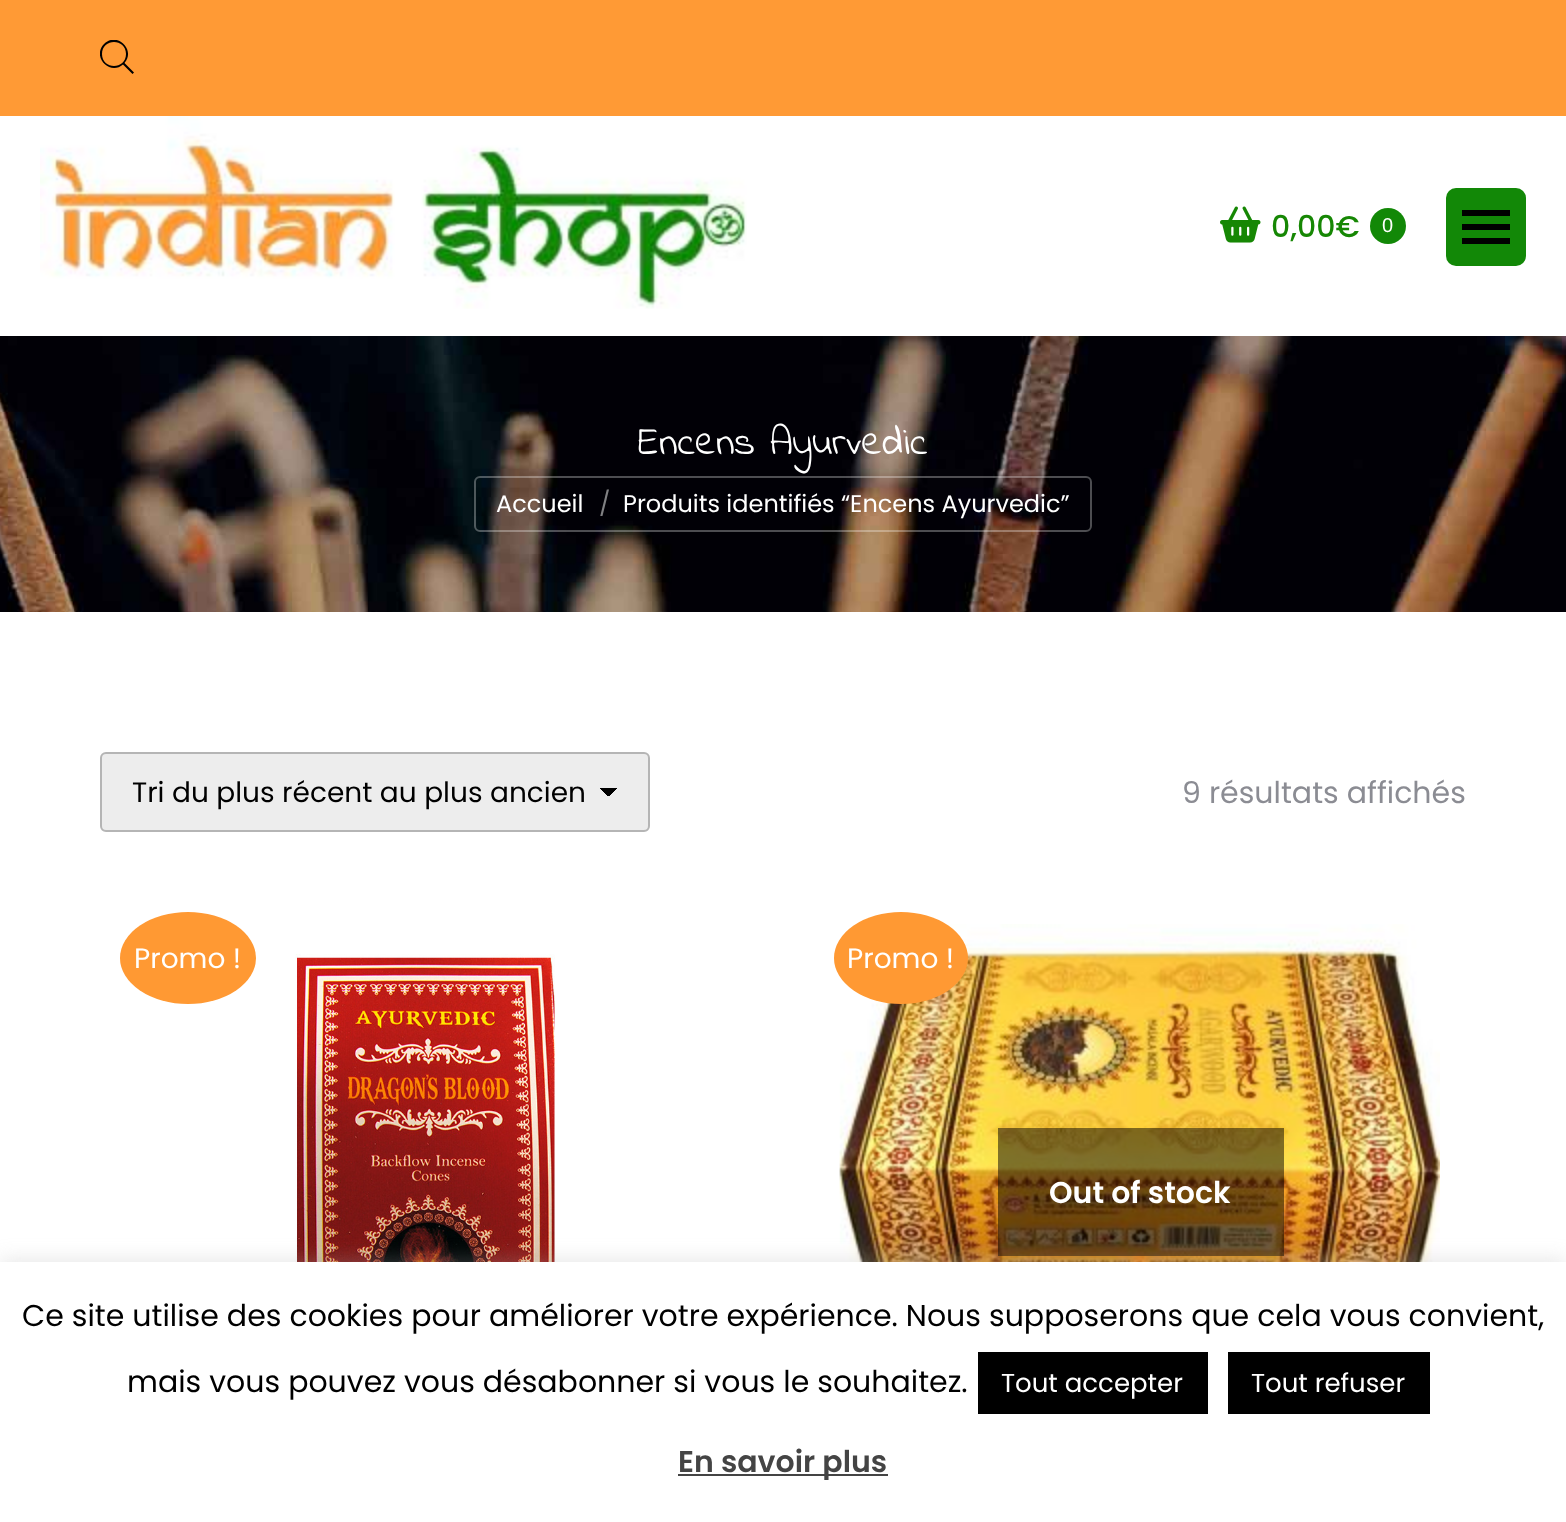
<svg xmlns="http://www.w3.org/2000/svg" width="1566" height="1522">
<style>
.a{font:500 30px Poppins;fill:#168704}
.b{font:20px Liberation Sans;fill:#fff}
.c{font:40px Indie Flower;fill:#fff}
.d{font:24px Poppins;fill:#fff}
.e{font:24px Poppins;fill:#808083}
.f{font:28px Poppins;fill:#000}
.g{font:30px Poppins;fill:#8b8c93}
.h{font:28px Poppins;fill:#fff}
.i{font:600 30px Poppins;fill:#fff}
.j{font:30px Poppins;fill:#000}
.k{font:26px Poppins;fill:#fff}
.l{font:600 30px Poppins;fill:#444}
</style>
<defs>
<clipPath id="clip1"><path d="M100 40h34v34H100z"/></clipPath>
<linearGradient id="g1" gradientUnits="userSpaceOnUse" x1="608" y1="787" x2="618" y2="797"><stop offset="0.5" stop-color="#000"/><stop offset="0.5" stop-color="#ededed"/></linearGradient>
<linearGradient id="g2" gradientUnits="userSpaceOnUse" x1="598" y1="797" x2="608" y2="787"><stop offset="0.5" stop-color="#ededed"/><stop offset="0.5" stop-color="#000"/></linearGradient>
</defs>
<rect width="100%" height="100%" fill="#fff"/>
<path fill="#ff9a35" d="M0 0h1566v116H0z"/>
<g clip-path="url(#clip1)">
<path fill="#000" d="M134 72.5l-9.5-9.5c11.5-13-7.5-32-20.5-19c-12.5 13 6 32 19 20.5l9.5 9.5zm-32-18.5c0-16 24-16 24 0c0 16-24 16-24 0z"/>
</g>
<image href="1.png" x="40" y="116" width="707" height="193"/>
<image href="2.png" x="1220" y="206" width="41" height="37"/>
<circle fill="#128807" cx="1388" cy="226" r="18"/>
<rect fill="#128807" x="1446" y="188" width="80" height="78" rx="10"/>
<path fill="#000" d="M1462 210h48v6H1462z"/>
<path fill="#000" d="M1462 224h48v6H1462z"/>
<path fill="#000" d="M1462 238h48v6H1462z"/>
<image href="3.png" x="0" y="336" width="1566" height="276"/>
<rect fill="none" stroke="#ffffff4d" stroke-width="2" x="475" y="477" width="616" height="54" rx="5"/>
<rect fill="#ededed" x="100" y="752" width="550" height="80" rx="6"/>
<path fill="url(#g1)" d="M608 788h9v8H608z"/>
<path fill="url(#g2)" d="M600 788h8v8H600z"/>
<rect fill="none" stroke="#11111140" stroke-width="2" x="101" y="753" width="548" height="78" rx="5"/>
<ellipse fill="#f93" cx="188" cy="958" rx="68" ry="46"/>
<image href="4.png" x="295" y="954" width="260" height="308"/>
<image href="5.png" x="839" y="924" width="601" height="338"/>
<ellipse fill="#f93" cx="901" cy="958" rx="67" ry="46"/>
<path fill="#00000080" d="M998 1128h286v128H998z"/>
<path fill="#acabab4d" filter="blur(10px)" d="M0 1260h1566v260H0z"/>
<path fill="#fff" d="M0 1262h1566v260H0z"/>
<path fill="#000" d="M978 1352h230v62H978z"/>
<path fill="#000" d="M1228 1352h202v62H1228z"/>
<path fill="#444" d="M678 1474h210v2H678z"/>
<text class="a" x="1271" y="237">0,00€</text>
<text class="b" x="1382" y="232">0</text>
<text class="c" x="638" y="454">Encens Ayurvedic</text>
<text class="d" x="496" y="512">Accueil</text>
<text class="e" x="599" y="512">/</text>
<text class="d" x="623" y="512">Produits identifiés “Encens Ayurvedic”</text>
<text class="f" x="132" y="802">Tri du plus récent au plus ancien</text>
<text class="g" x="1182" y="803">9 résultats affichés</text>
<text class="h" x="134" y="968">Promo !</text>
<text class="h" x="847" y="968">Promo !</text>
<text class="i" x="1049" y="1203">Out of stock</text>
<text class="j" x="22" y="1326">Ce site utilise des cookies pour améliorer votre expérience. Nous supposerons que cela vous convient,</text>
<text class="j" x="127" y="1392">mais vous pouvez vous désabonner si vous le souhaitez.</text>
<text class="k" x="1001" y="1392">Tout accepter</text>
<text class="k" x="1251" y="1392">Tout refuser</text>
<text class="l" x="678" y="1472">En savoir plus</text>
</svg>
